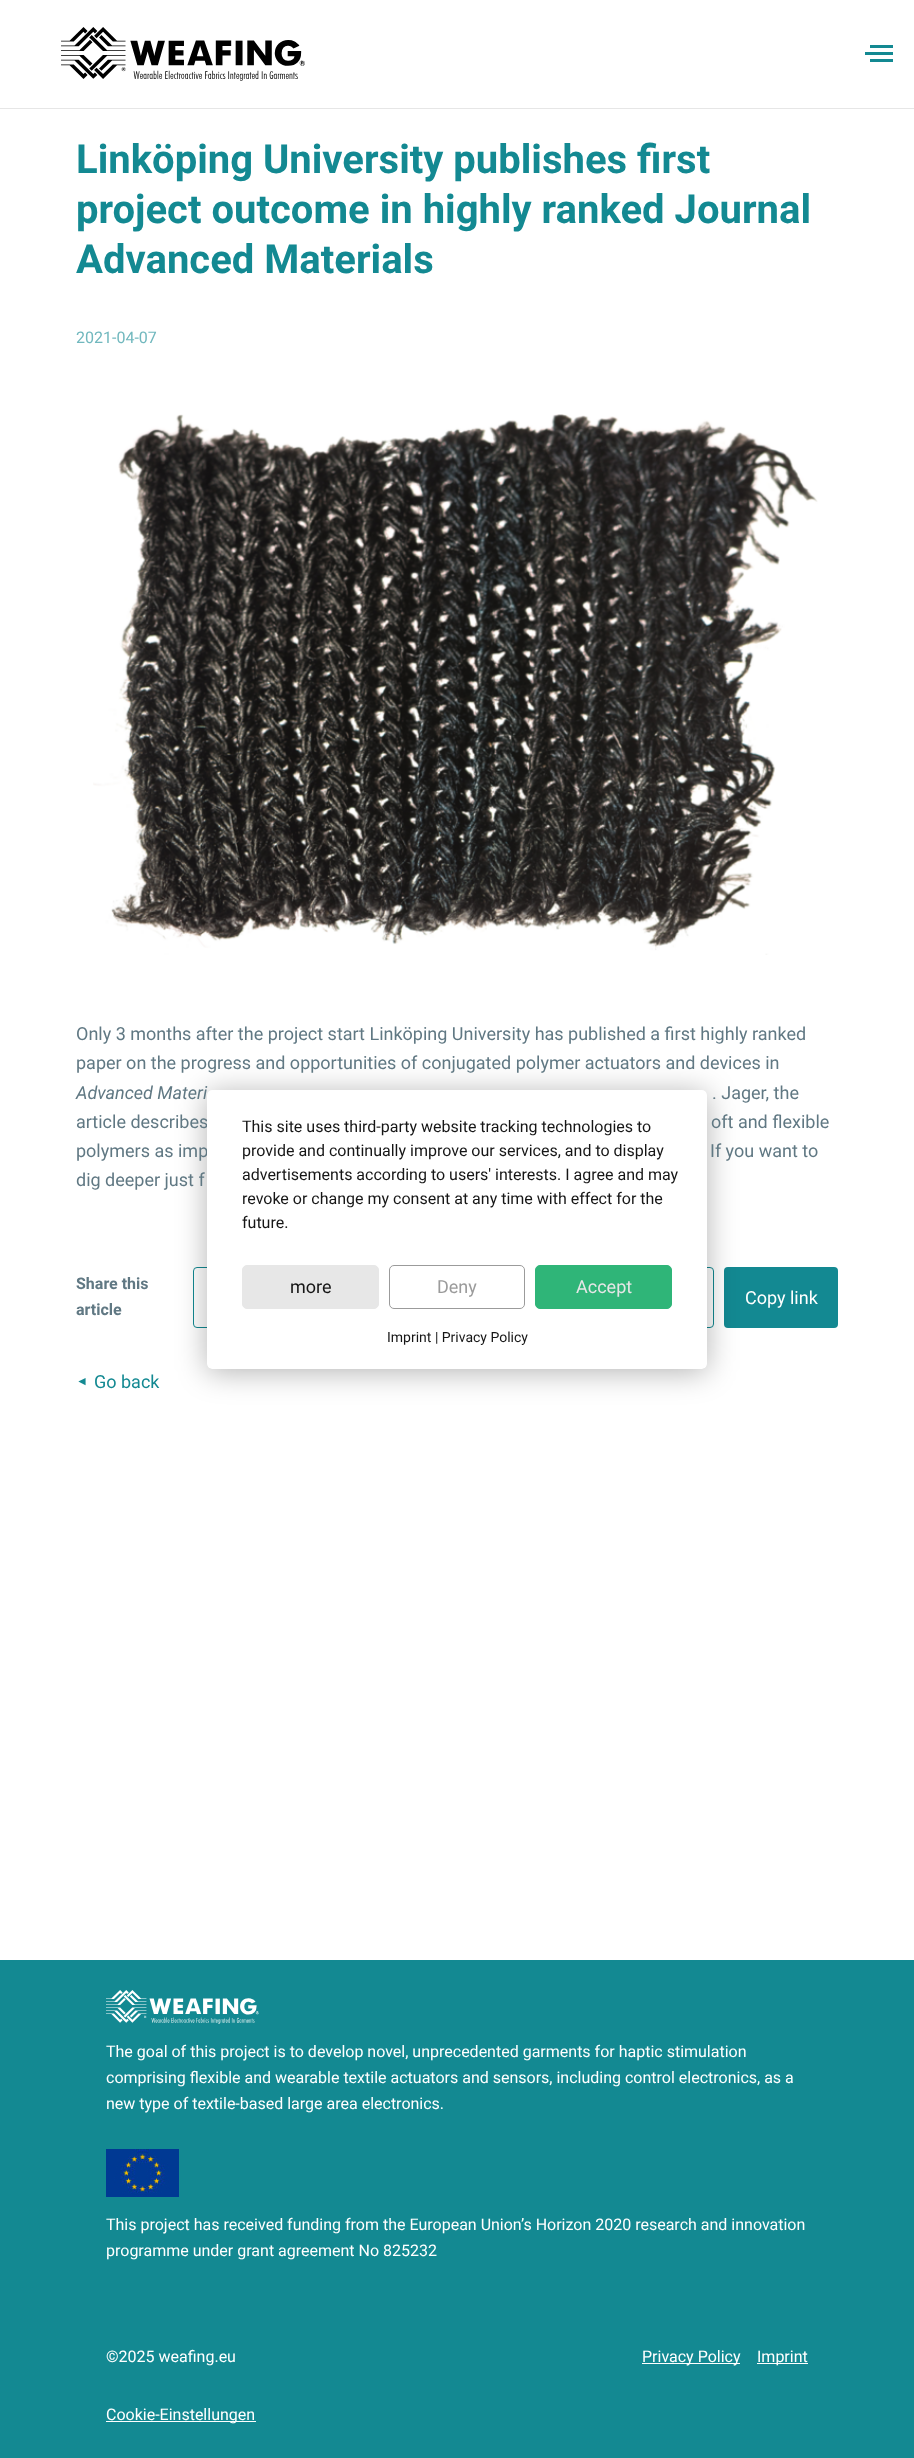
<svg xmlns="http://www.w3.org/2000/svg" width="914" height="2458">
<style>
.a{font:bold 40px Roboto;fill:#138992}
.b{font:16px Roboto;fill:#71b8be}
.c{font:18px Roboto;fill:#607883}
.d{font:italic 18px Roboto;fill:#607883}
.e{font:bold 16px Roboto;fill:#607883}
.f{font:18px Roboto;fill:#fff}
.g{font:12px Liberation Serif;fill:#138992}
.h{font:18px Roboto;fill:#138992}
.i{font:16px Roboto;fill:#fff}
.j{font:16px Roboto;fill:#161616}
.k{font:18px Roboto;fill:#161616}
.l{font:18px Roboto;fill:#9b9b9b}
.m{font:18px Roboto;fill:#e6e6e6}
.n{font:14px Roboto;fill:#161616}
</style>
<defs>
<clipPath id="clip1"><rect x="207" y="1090" width="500" height="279" rx="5"/></clipPath>
</defs>
<rect width="100%" height="100%" fill="#fff"/>
<path fill="#e6e6e6" d="M0 108h914v1H0z"/>
<image href="1.png" x="61" y="27" width="244" height="54"/>
<path fill="#138992" d="M865 52h28v3H865z"/>
<path fill="#138992" d="M870 45h23v3H870z"/>
<path fill="#138992" d="M870 59h23v3H870z"/>
<image href="2.png" x="93" y="414" width="725" height="541"/>
<rect fill="none" stroke="#138992" x="193.5" y="1267.5" width="520" height="60" rx="3.5"/>
<rect fill="#138992" x="724" y="1267" width="114" height="61" rx="4"/>
<path fill="#138992" d="M0 1960h914v498H0z"/>
<image href="3.png" x="106" y="1990" width="153" height="34"/>
<image href="4.png" x="106" y="2149" width="73" height="48"/>
<path fill="#fff" d="M642 2363h98v1H642z"/>
<path fill="#fff" d="M757 2363h51v1H757z"/>
<path fill="#fff" d="M106 2421h150v1H106z"/>
<rect fill="#0000004d" filter="blur(15px)" x="207" y="1093" width="500" height="279" rx="5"/>
<g clip-path="url(#clip1)">
<path fill="#0000004d" filter="blur(18px)" d="M207 1096h500v279H207z"/>
</g>
<text class="a" x="76" y="173">Linköping University publishes first</text>
<text class="a" x="76" y="223">project outcome in highly ranked Journal</text>
<text class="a" x="76" y="273">Advanced Materials</text>
<text class="b" x="76" y="343">2021-04-07</text>
<text class="c" x="76" y="1040">Only 3 months after the project start Linköping University has published a first highly ranked</text>
<text class="c" x="76" y="1069">paper on the progress and opportunities of conjugated polymer actuators and devices in</text>
<text class="d" x="76" y="1099">Advanced Materi</text>
<text class="c" x="712" y="1099">. Jager, the</text>
<text class="c" x="76" y="1128">article describes</text>
<text class="c" x="711" y="1128">oft and flexible</text>
<text class="c" x="76" y="1157">polymers as imp</text>
<text class="c" x="710" y="1157">If you want to</text>
<text class="c" x="76" y="1186">dig deeper just f</text>
<text class="e" x="76" y="1289">Share this</text>
<text class="e" x="76" y="1315">article</text>
<text class="f" x="745" y="1304">Copy link</text>
<text class="g" x="76" y="1385">◄</text>
<text class="h" x="94" y="1388">Go back</text>
<text class="i" x="106" y="2057">The goal of this project is to develop novel, unprecedented garments for haptic stimulation</text>
<text class="i" x="106" y="2083">comprising flexible and wearable textile actuators and sensors, including control electronics, as a</text>
<text class="i" x="106" y="2109">new type of textile-based large area electronics.</text>
<text class="i" x="106" y="2230">This project has received funding from the European Union’s Horizon 2020 research and innovation</text>
<text class="i" x="106" y="2256">programme under grant agreement No 825232</text>
<text class="i" x="106" y="2362">©2025 weafing.eu</text>
<text class="i" x="642" y="2362">Privacy Policy</text>
<text class="i" x="757" y="2362">Imprint</text>
<text class="i" x="106" y="2420">Cookie-Einstellungen</text>
<rect fill="#fff" x="207" y="1090" width="500" height="279" rx="5"/>
<text class="j" x="242" y="1132">This site uses third-party website tracking technologies to</text>
<text class="j" x="242" y="1156">provide and continually improve our services, and to display</text>
<text class="j" x="242" y="1180">advertisements according to users' interests. I agree and may</text>
<text class="j" x="242" y="1204">revoke or change my consent at any time with effect for the</text>
<text class="j" x="242" y="1228">future.</text>
<rect fill="#e7e7e7" stroke="#e7e7e7" x="242.5" y="1265.5" width="136" height="43" rx="4.5"/>
<text class="k" x="290" y="1293">more</text>
<rect fill="none" stroke="#9b9b9b" x="389.5" y="1265.5" width="135" height="43" rx="4.5"/>
<text class="l" x="437" y="1293">Deny</text>
<rect fill="#2fb578" stroke="#2fb578" x="535.5" y="1265.5" width="136" height="43" rx="4.5"/>
<text class="m" x="576" y="1293">Accept</text>
<text class="n" x="387" y="1342">Imprint | Privacy Policy</text>
</svg>
